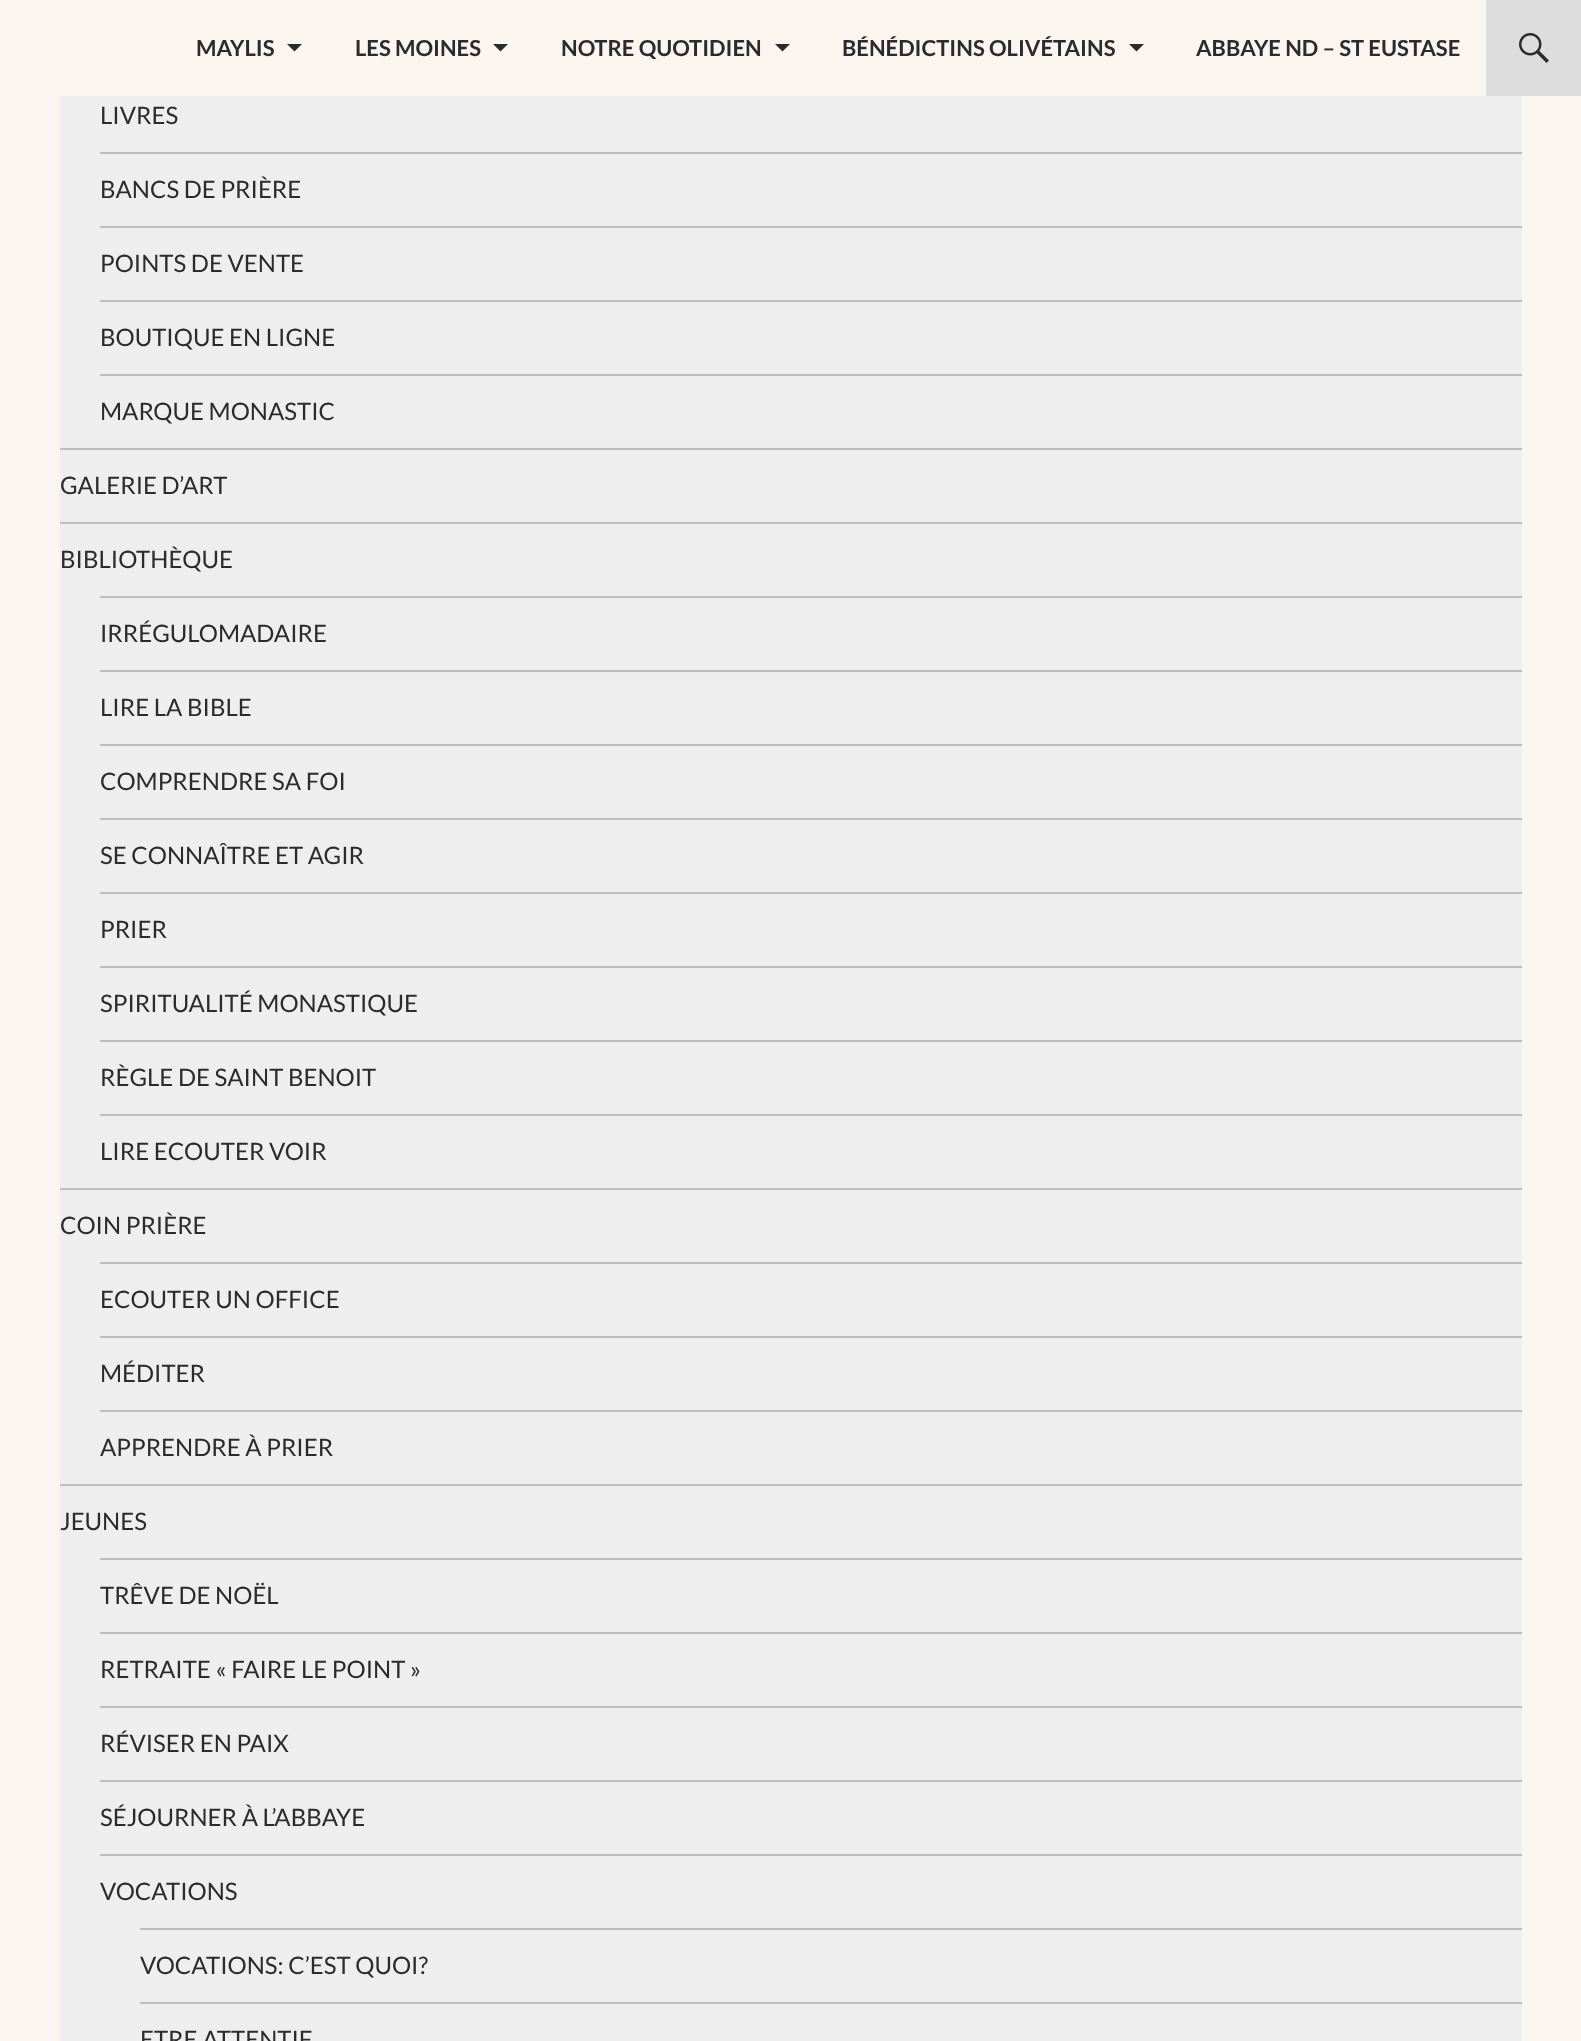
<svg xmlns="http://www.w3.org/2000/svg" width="1581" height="2041">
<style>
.a{font:bold 22px Lato;fill:#2b2b2b}
.b{font:24px Lato;fill:#2b2b2b}
</style>
<rect width="100%" height="100%" fill="#fbf5ef"/>
<path fill="#2b2b2b" d="M287 44l7.5 7.5l7.5-7.5z"/>
<path fill="#2b2b2b" d="M493 44l7.5 7.5l7.5-7.5z"/>
<path fill="#2b2b2b" d="M775 44l7.5 7.5l7.5-7.5z"/>
<path fill="#2b2b2b" d="M1129 44l7.5 7.5l7.5-7.5z"/>
<path fill="#ddd" d="M1486 0h95v96H1486z"/>
<image href="1.png" x="1519" y="33" width="30" height="30"/>
<path fill="#eee" d="M60 96h1462v1945H60z"/>
<path fill="#bebebe" d="M100 152h1422v2H100z"/>
<path fill="#bebebe" d="M100 226h1422v2H100z"/>
<path fill="#bebebe" d="M100 300h1422v2H100z"/>
<path fill="#bebebe" d="M100 374h1422v2H100z"/>
<path fill="#bebebe" d="M60 448h1462v2H60z"/>
<path fill="#bebebe" d="M60 522h1462v2H60z"/>
<path fill="#bebebe" d="M100 596h1422v2H100z"/>
<path fill="#bebebe" d="M100 670h1422v2H100z"/>
<path fill="#bebebe" d="M100 744h1422v2H100z"/>
<path fill="#bebebe" d="M100 818h1422v2H100z"/>
<path fill="#bebebe" d="M100 892h1422v2H100z"/>
<path fill="#bebebe" d="M100 966h1422v2H100z"/>
<path fill="#bebebe" d="M100 1040h1422v2H100z"/>
<path fill="#bebebe" d="M100 1114h1422v2H100z"/>
<path fill="#bebebe" d="M60 1188h1462v2H60z"/>
<path fill="#bebebe" d="M100 1262h1422v2H100z"/>
<path fill="#bebebe" d="M100 1336h1422v2H100z"/>
<path fill="#bebebe" d="M100 1410h1422v2H100z"/>
<path fill="#bebebe" d="M60 1484h1462v2H60z"/>
<path fill="#bebebe" d="M100 1558h1422v2H100z"/>
<path fill="#bebebe" d="M100 1632h1422v2H100z"/>
<path fill="#bebebe" d="M100 1706h1422v2H100z"/>
<path fill="#bebebe" d="M100 1780h1422v2H100z"/>
<path fill="#bebebe" d="M100 1854h1422v2H100z"/>
<path fill="#bebebe" d="M140 1928h1382v2H140z"/>
<path fill="#bebebe" d="M140 2002h1382v2H140z"/>
<text class="a" x="196" y="56">MAYLIS</text>
<text class="a" x="355" y="56">LES MOINES</text>
<text class="a" x="561" y="56">NOTRE QUOTIDIEN</text>
<text class="a" x="842" y="56">BÉNÉDICTINS OLIVÉTAINS</text>
<text class="a" x="1196" y="56">ABBAYE ND – ST EUSTASE</text>
<text class="b" x="100" y="124">LIVRES</text>
<text class="b" x="100" y="198">BANCS DE PRIÈRE</text>
<text class="b" x="100" y="272">POINTS DE VENTE</text>
<text class="b" x="100" y="346">BOUTIQUE EN LIGNE</text>
<text class="b" x="100" y="420">MARQUE MONASTIC</text>
<text class="b" x="60" y="494">GALERIE D’ART</text>
<text class="b" x="60" y="568">BIBLIOTHÈQUE</text>
<text class="b" x="100" y="642">IRRÉGULOMADAIRE</text>
<text class="b" x="100" y="716">LIRE LA BIBLE</text>
<text class="b" x="100" y="790">COMPRENDRE SA FOI</text>
<text class="b" x="100" y="864">SE CONNAÎTRE ET AGIR</text>
<text class="b" x="100" y="938">PRIER</text>
<text class="b" x="100" y="1012">SPIRITUALITÉ MONASTIQUE</text>
<text class="b" x="100" y="1086">RÈGLE DE SAINT BENOIT</text>
<text class="b" x="100" y="1160">LIRE ECOUTER VOIR</text>
<text class="b" x="60" y="1234">COIN PRIÈRE</text>
<text class="b" x="100" y="1308">ECOUTER UN OFFICE</text>
<text class="b" x="100" y="1382">MÉDITER</text>
<text class="b" x="100" y="1456">APPRENDRE À PRIER</text>
<text class="b" x="60" y="1530">JEUNES</text>
<text class="b" x="100" y="1604">TRÊVE DE NOËL</text>
<text class="b" x="100" y="1678">RETRAITE « FAIRE LE POINT »</text>
<text class="b" x="100" y="1752">RÉVISER EN PAIX</text>
<text class="b" x="100" y="1826">SÉJOURNER À L’ABBAYE</text>
<text class="b" x="100" y="1900">VOCATIONS</text>
<text class="b" x="140" y="1974">VOCATIONS: C’EST QUOI?</text>
<text class="b" x="140" y="2048">ETRE ATTENTIF</text>
</svg>
